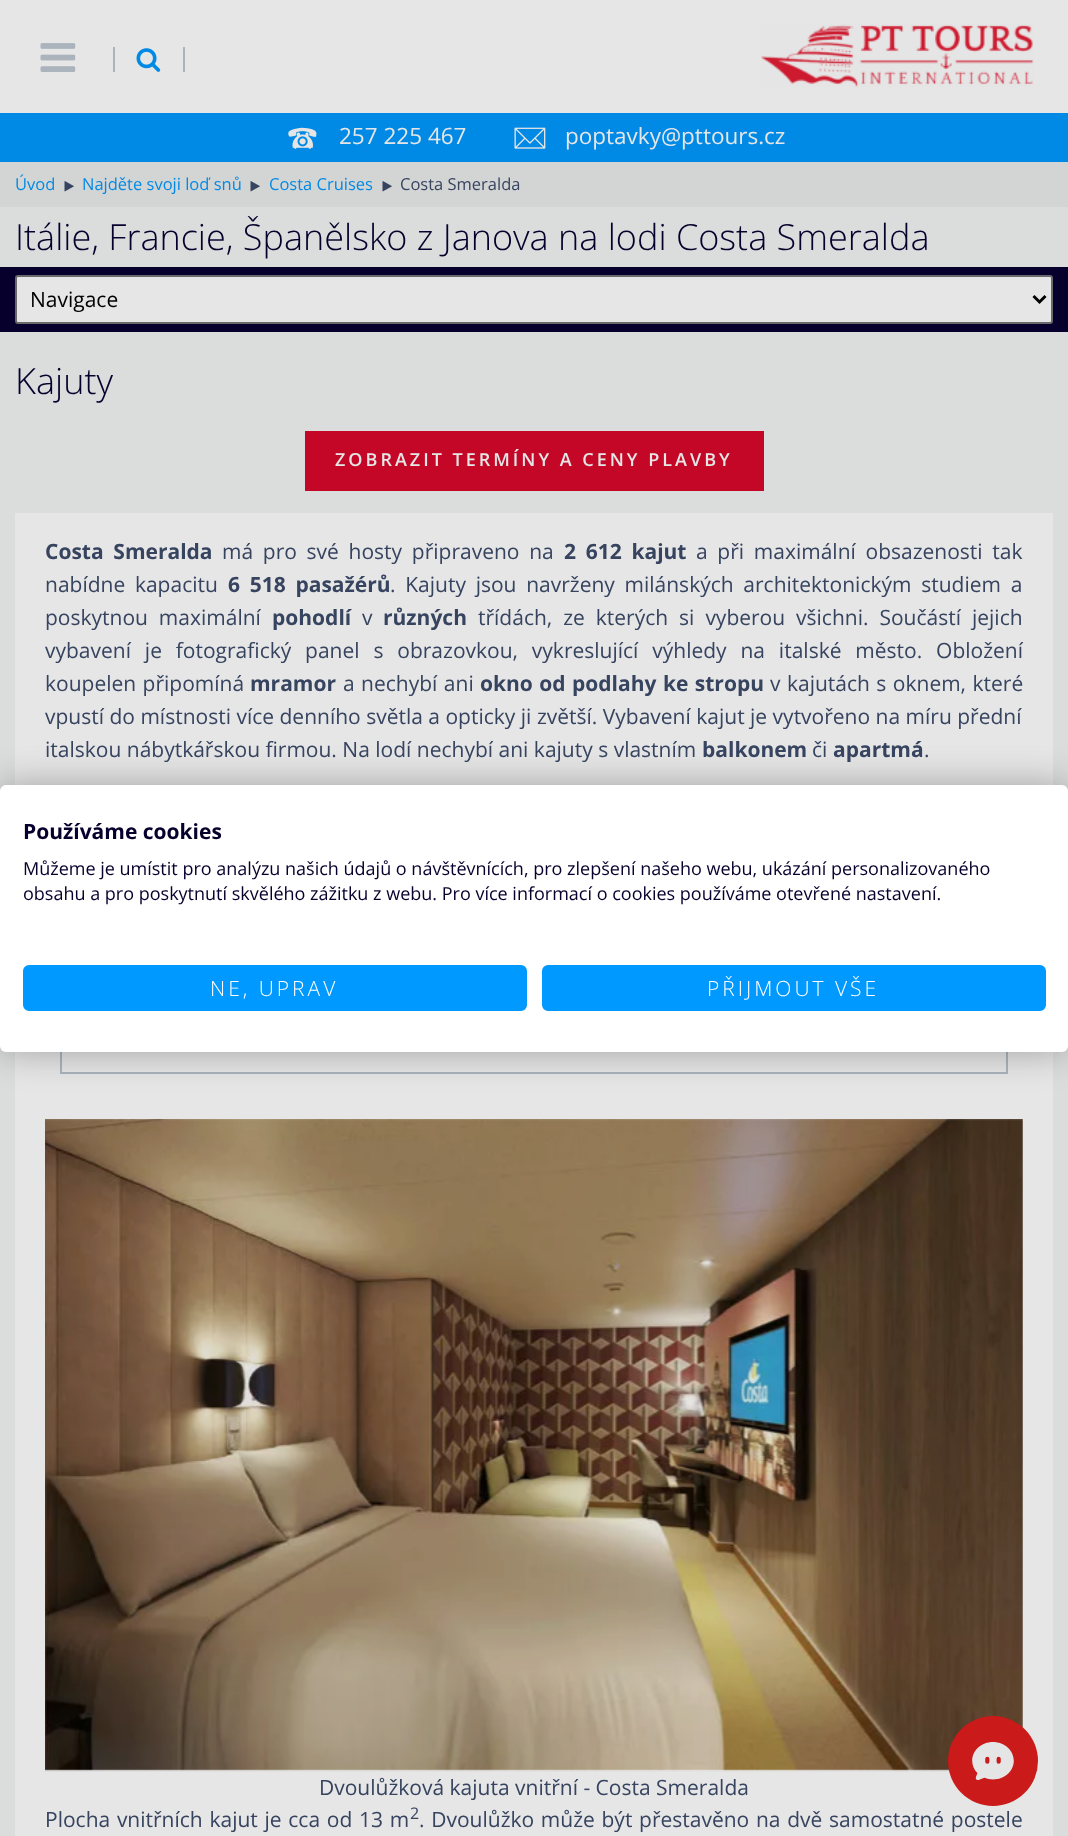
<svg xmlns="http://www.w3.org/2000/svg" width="1068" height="1836">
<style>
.a{font:22.5px Open Sans;fill:#e6e6e6}
.b{font:16.5px Open Sans;fill:#008ae6}
.c{font:16.5px Open Sans;fill:#374460}
.d{font:300 36px Open Sans;fill:#07002d}
.e{font:21px Open Sans;fill:#000}
.f{font:600 18px Open Sans;letter-spacing:3px;fill:#e6e6e6}
.g{font:bold 21px Open Sans;fill:#374460}
.h{font:21px Open Sans;fill:#374460}
.i{font:16px Open Sans;fill:#374460}
.j{font:bold 21px Open Sans;fill:#07002d}
.k{font:18px Open Sans;fill:#07002d}
.l{font:300 21px Open Sans;letter-spacing:3px;fill:#fff}
</style>
<rect width="100%" height="100%" fill="#e6e6e6"/>
<path fill="#008ae6" d="M0 113h1068v49H0z"/>
<image href="1.png" x="40" y="43" width="36" height="29"/>
<path fill="#abb4bd" d="M113 47h2v25H113z"/>
<image href="2.png" x="136" y="48" width="25" height="24"/>
<path fill="#abb4bd" d="M183 47h2v25H183z"/>
<image href="3.png" x="761" y="24" width="273" height="63"/>
<image href="4.png" x="288" y="127" width="29" height="22"/>
<image href="5.png" x="514" y="127" width="32" height="22"/>
<path fill="#dbdddd" d="M0 207h1068v1629H0z"/>
<path fill="#d3d4d4" d="M0 162h1068v45H0z"/>
<image href="6.png" x="64" y="181" width="10" height="11"/>
<image href="6.png" x="250" y="181" width="10" height="11"/>
<image href="6.png" x="382" y="181" width="10" height="11"/>
<path fill="#07002d" d="M0 267h1068v65H0z"/>
<rect fill="#e6e6e6" stroke="#6a6a6a" stroke-width="2" x="16" y="276" width="1036" height="47" rx="2"/>
<path fill="none" stroke="#000" stroke-width="3" d="M1033.5 296l6 6l6-6"/>
<path fill="#c50727" d="M305 431h459v60H305z"/>
<path fill="#e6e6e6" d="M15 513h1038v1323H15z"/>
<path fill="none" stroke="#abb4bd" stroke-width="2" d="M61 1015h946v58H61z"/>
<image href="7.png" x="45" y="1119" width="978" height="653"/>
<rect fill="#0000004d" filter="blur(18px)" y="785" width="1068" height="267" rx="6"/>
<rect fill="#fff" y="785" width="1068" height="267" rx="6"/>
<rect fill="#09f" stroke="#09f" stroke-width="2" x="24" y="966" width="502" height="44" rx="5"/>
<rect fill="#09f" stroke="#09f" stroke-width="2" x="543" y="966" width="502" height="44" rx="5"/>
<image href="8.png" x="948" y="1716" width="90" height="90"/>
<text class="a" x="339" y="144">257 225 467</text>
<text class="a" x="565" y="144">poptavky@pttours.cz</text>
<text class="b" x="15" y="190">Úvod</text>
<text class="b" x="82" y="190">Najděte svoji loď snů</text>
<text class="b" x="269" y="190">Costa Cruises</text>
<text class="c" x="400" y="190">Costa Smeralda</text>
<text class="d" x="15" y="250">Itálie, Francie, Španělsko z Janova na lodi Costa Smeralda</text>
<text class="e" x="30" y="307">Navigace</text>
<text class="d" x="15" y="394">Kajuty</text>
<text class="f" x="335" y="466">ZOBRAZIT TERMÍNY A CENY PLAVBY</text>
<text class="g" x="45" y="559" word-spacing="4.25">Costa Smeralda</text>
<text class="h" x="222" y="559" word-spacing="4.25">má pro své hosty připraveno na</text>
<text class="g" x="564" y="559" word-spacing="4.25">2 612 kajut</text>
<text class="h" x="696" y="559" word-spacing="4.25">a při maximální obsazenosti tak</text>
<text class="h" x="45" y="592" word-spacing="4.25">nabídne kapacitu</text>
<text class="g" x="228" y="592" word-spacing="4.25">6 518 pasažérů</text>
<text class="h" x="390" y="592" word-spacing="4.25">. Kajuty jsou navrženy milánských architektonickým studiem a</text>
<text class="h" x="45" y="625" word-spacing="5.5">poskytnou maximální</text>
<text class="g" x="272" y="625">pohodlí</text>
<text class="h" x="362" y="625">v</text>
<text class="g" x="383" y="625">různých</text>
<text class="h" x="478" y="625" word-spacing="5.5">třídách, ze kterých si vyberou všichni. Součástí jejich</text>
<text class="h" x="45" y="658" word-spacing="8.4">vybavení je fotografický panel s obrazovkou, vykreslující výhledy na italské město. Obložení</text>
<text class="h" x="45" y="691" word-spacing="1">koupelen připomíná</text>
<text class="g" x="250" y="691">mramor</text>
<text class="h" x="343" y="691" word-spacing="1">a nechybí ani</text>
<text class="g" x="480" y="691" word-spacing="1">okno od podlahy ke stropu</text>
<text class="h" x="770" y="691" word-spacing="1">v kajutách s oknem, které</text>
<text class="h" x="45" y="724">vpustí do místnosti více denního světla a opticky ji zvětší. Vybavení kajut je vytvořeno na míru přední</text>
<text class="h" x="45" y="757">italskou nábytkářskou firmou. Na lodí nechybí ani kajuty s vlastním</text>
<text class="g" x="702" y="757">balkonem</text>
<text class="h" x="812" y="757">či</text>
<text class="g" x="833" y="757">apartmá</text>
<text class="h" x="924" y="757">.</text>
<text class="h" x="319" y="1795">Dvoulůžková kajuta vnitřní - Costa Smeralda</text>
<text class="h" x="45" y="1827" word-spacing="1.25">Plocha vnitřních kajut je cca od 13 m</text>
<text class="i" x="410" y="1819">2</text>
<text class="h" x="419" y="1827" word-spacing="1.25">. Dvoulůžko může být přestavěno na dvě samostatné postele</text>
<text class="j" x="23" y="839">Používáme cookies</text>
<text class="k" x="23" y="875">Můžeme je umístit pro analýzu našich údajů o návštěvnících, pro zlepšení našeho webu, ukázání personalizovaného</text>
<text class="k" x="23" y="900">obsahu a pro poskytnutí skvělého zážitku z webu. Pro více informací o cookies používáme otevřené nastavení.</text>
<text class="l" x="210" y="996">NE, UPRAV</text>
<text class="l" x="707" y="996">PŘIJMOUT VŠE</text>
</svg>
